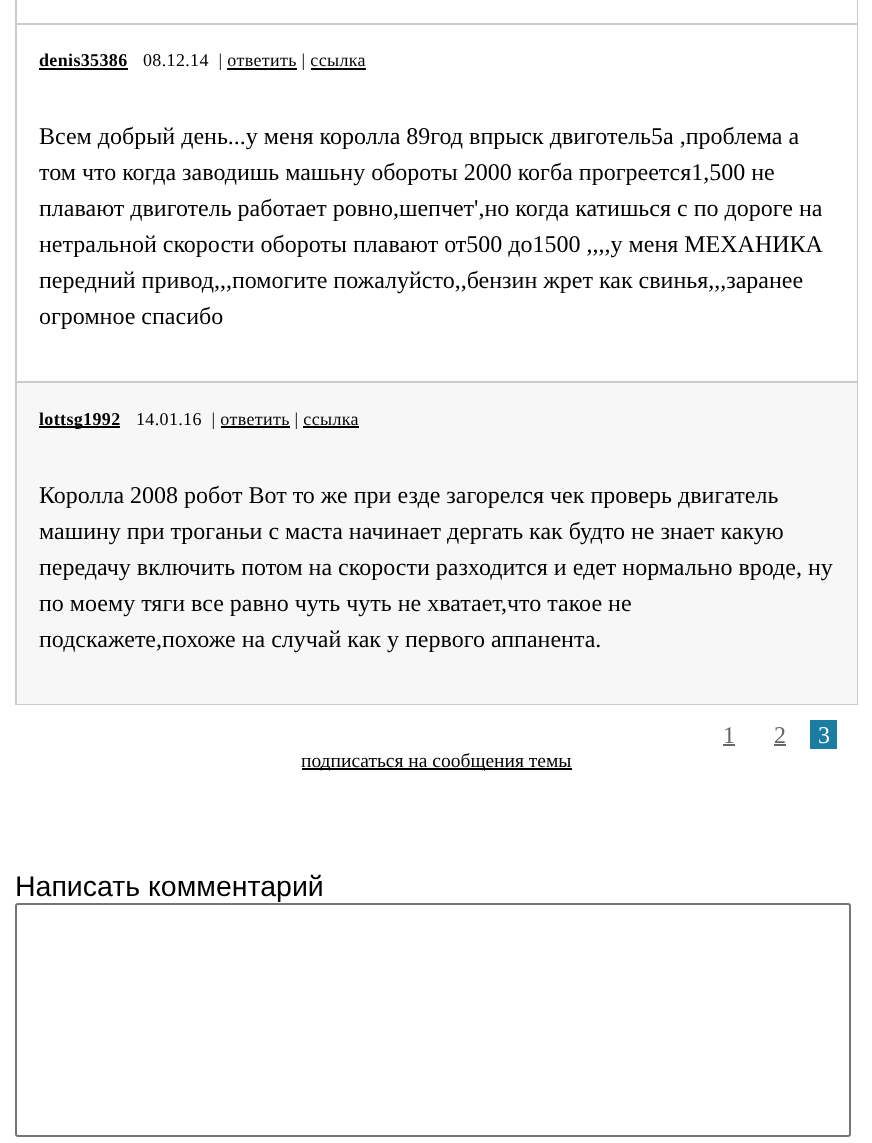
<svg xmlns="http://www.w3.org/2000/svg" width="872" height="1143">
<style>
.a{font:bold 18px Liberation Serif;letter-spacing:0.35px;fill:#000}
.b{font:18px Liberation Serif;letter-spacing:0.35px;fill:#000}
.c{font:24px Liberation Serif;fill:#000}
.d{font:24px Liberation Serif;fill:#666}
.e{font:24px Liberation Serif;fill:#fff}
.f{font:19.5px Liberation Serif;fill:#000}
.g{font:28.5px Liberation Sans;fill:#000}
</style>
<rect width="100%" height="100%" fill="#fff"/>
<path fill="#ccc" d="M857 0h1v23H857z"/>
<path fill="#ccc" d="M15 0h2v23H15z"/>
<path fill="#ccc" d="M15 23h843v2H15z"/>
<path fill="#ccc" d="M857 23h1v358H857z"/>
<path fill="#ccc" d="M15 23h2v358H15z"/>
<path fill="#000" d="M39 68h89v2H39z"/>
<path fill="#000" d="M227 68h70v2H227z"/>
<path fill="#000" d="M311 68h55v2H311z"/>
<path fill="#f7f7f7" d="M17 383h840v321H17z"/>
<path fill="#ccc" d="M15 704h843v1H15z"/>
<path fill="#ccc" d="M15 381h843v2H15z"/>
<path fill="#ccc" d="M857 381h1v323H857z"/>
<path fill="#ccc" d="M15 381h2v323H15z"/>
<path fill="#000" d="M39 426h81v2H39z"/>
<path fill="#000" d="M221 426h69v2H221z"/>
<path fill="#000" d="M303 426h56v2H303z"/>
<path fill="#666" d="M723 744h12v2H723z"/>
<path fill="#666" d="M774 744h12v2H774z"/>
<path fill="#1c7da3" d="M810 720h27v29H810z"/>
<path fill="#000" d="M302 768h270v2H302z"/>
<rect fill="none" stroke="#767676" stroke-width="2" x="16" y="904" width="834" height="232" rx="2"/>
<text class="a" x="39" y="66">denis35386</text>
<text class="b" xml:space="preserve" x="143" y="66">08.12.14  | ответить | ссылка</text>
<text class="c" x="39" y="144">Всем добрый день...у меня королла 89год впрыск двиготель5а ,проблема а</text>
<text class="c" x="39" y="180">том что когда заводишь машьну обороты 2000 когба прогреется1,500 не</text>
<text class="c" x="39" y="216">плавают двиготель работает ровно,шепчет',но когда катишься с по дороге на</text>
<text class="c" x="39" y="252">нетральной скорости обороты плавают от500 до1500 ,,,,у меня МЕХАНИКА</text>
<text class="c" x="39" y="288">передний привод,,,помогите пожалуйсто,,бензин жрет как свинья,,,заранее</text>
<text class="c" x="39" y="324">огромное спасибо</text>
<text class="a" x="39" y="425">lottsg1992</text>
<text class="b" xml:space="preserve" x="136" y="425">14.01.16  | ответить | ссылка</text>
<text class="c" x="39" y="503">Королла 2008 робот Вот то же при езде загорелся чек проверь двигатель</text>
<text class="c" x="39" y="539">машину при троганьи с маста начинает дергать как будто не знает какую</text>
<text class="c" x="39" y="575">передачу включить потом на скорости разходится и едет нормально вроде, ну</text>
<text class="c" x="39" y="611">по моему тяги все равно чуть чуть не хватает,что такое не</text>
<text class="c" x="39" y="647">подскажете,похоже на случай как у первого аппанента.</text>
<text class="d" x="723" y="743">1</text>
<text class="d" x="774" y="743">2</text>
<text class="e" x="818" y="743">3</text>
<text class="f" x="301" y="767">подписаться на сообщения темы</text>
<text class="g" x="15" y="896">Написать комментарий</text>
</svg>
